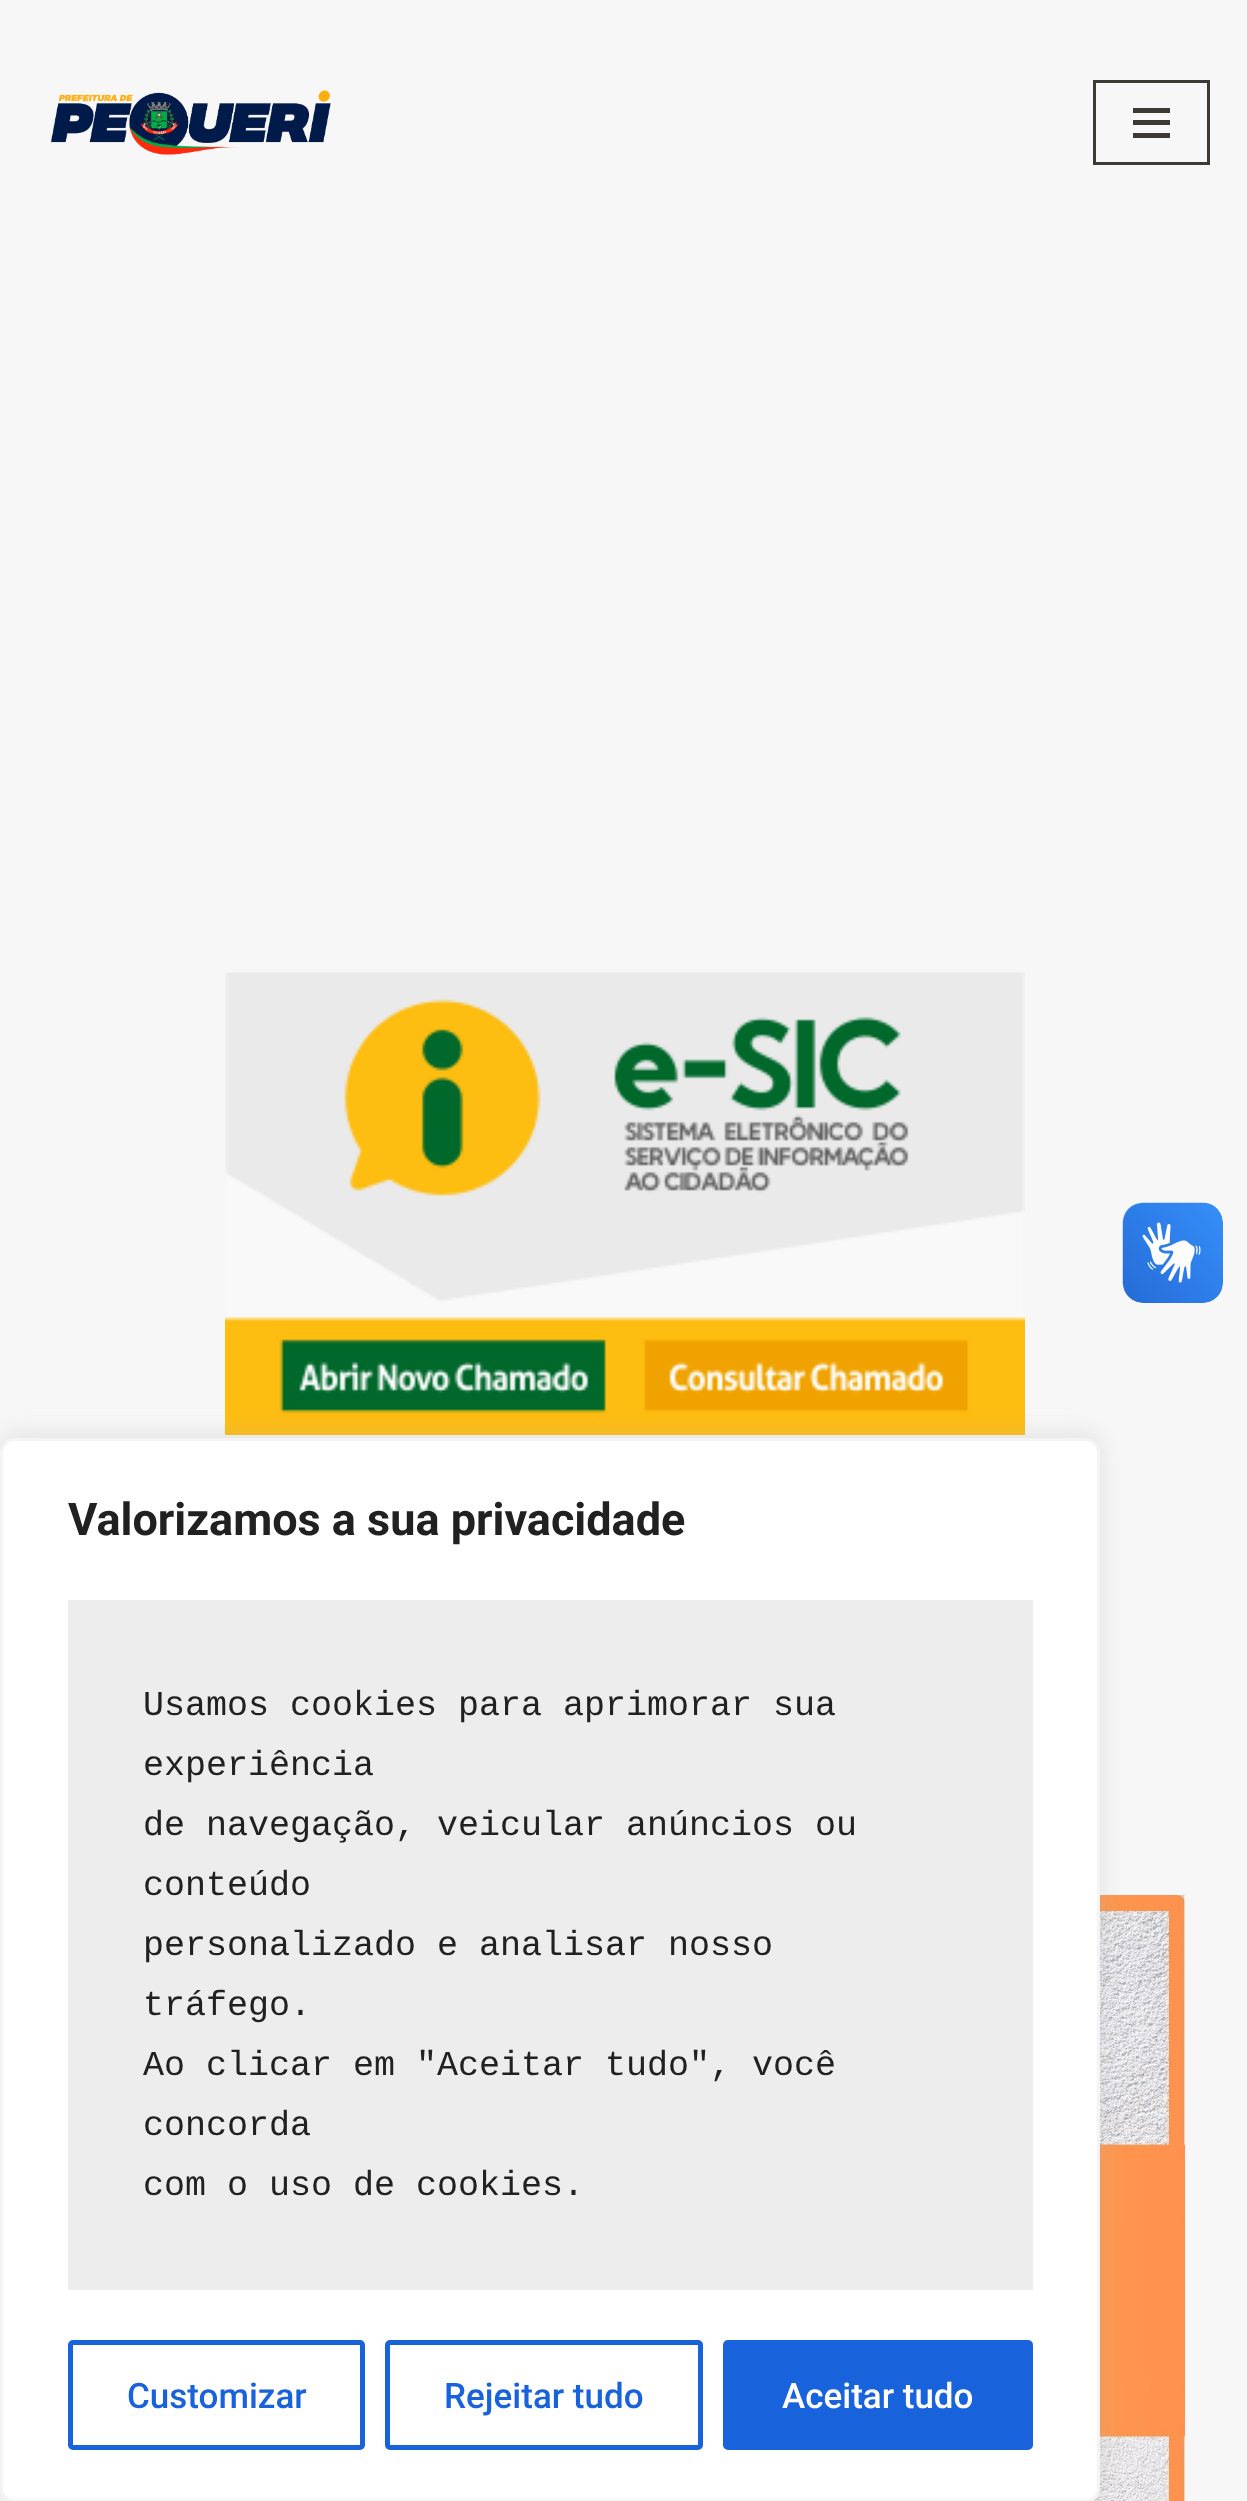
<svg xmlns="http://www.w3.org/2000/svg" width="1247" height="2501">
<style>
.a{font:bold 45px Roboto;fill:#212121}
.b{font:35px Liberation Mono;fill:#212121}
.c{font:500 35px Roboto;fill:#1863dc}
.d{font:500 35px Roboto;fill:#fff}
</style>
<rect width="100%" height="100%" fill="#f7f7f7"/>
<image href="1.png" x="51" y="90" width="280" height="65"/>
<path fill="none" stroke="#3d3a36" stroke-width="3" d="M1094.5 81.5h114v82H1094.5z"/>
<path fill="#3d3a36" d="M1133 108h37v5H1133z"/>
<path fill="#3d3a36" d="M1133 120h37v5H1133z"/>
<path fill="#3d3a36" d="M1133 133h37v5H1133z"/>
<image href="2.png" x="225" y="972" width="800" height="463"/>
<image href="3.png" x="1092" y="1895" width="93" height="606"/>
<image href="4.png" x="1122" y="1202" width="101" height="101"/>
<image href="5.png" x="1123" y="1203" width="100" height="100"/>
<rect fill="#acabab4d" filter="blur(12.5px)" y="1435" width="1100" height="1065" rx="15"/>
<rect fill="#fff" stroke="#f4f4f4" stroke-width="3" x="1.5" y="1439.5" width="1097" height="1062" rx="13.5"/>
<path fill="#ededed" d="M68 1600h965v690H68z"/>
<rect fill="none" stroke="#1863dc" stroke-width="5" x="70.5" y="2342.5" width="292" height="105" rx="2.5"/>
<rect fill="none" stroke="#1863dc" stroke-width="5" x="387.5" y="2342.5" width="313" height="105" rx="2.5"/>
<rect fill="#1863dc" stroke="#1863dc" stroke-width="5" x="725.5" y="2342.5" width="305" height="105" rx="2.5"/>
<text class="a" x="68" y="1535">Valorizamos a sua privacidade</text>
<text class="b" x="143" y="1715">Usamos cookies para aprimorar sua</text>
<text class="b" x="143" y="1775">experiência</text>
<text class="b" x="143" y="1835">de navegação, veicular anúncios ou</text>
<text class="b" x="143" y="1895">conteúdo</text>
<text class="b" x="143" y="1955">personalizado e analisar nosso</text>
<text class="b" x="143" y="2015">tráfego.</text>
<text class="b" x="143" y="2075">Ao clicar em "Aceitar tudo", você</text>
<text class="b" x="143" y="2135">concorda</text>
<text class="b" x="143" y="2195">com o uso de cookies.</text>
<text class="c" x="127" y="2408">Customizar</text>
<text class="c" x="444" y="2408">Rejeitar tudo</text>
<text class="d" x="782" y="2408">Aceitar tudo</text>
</svg>
